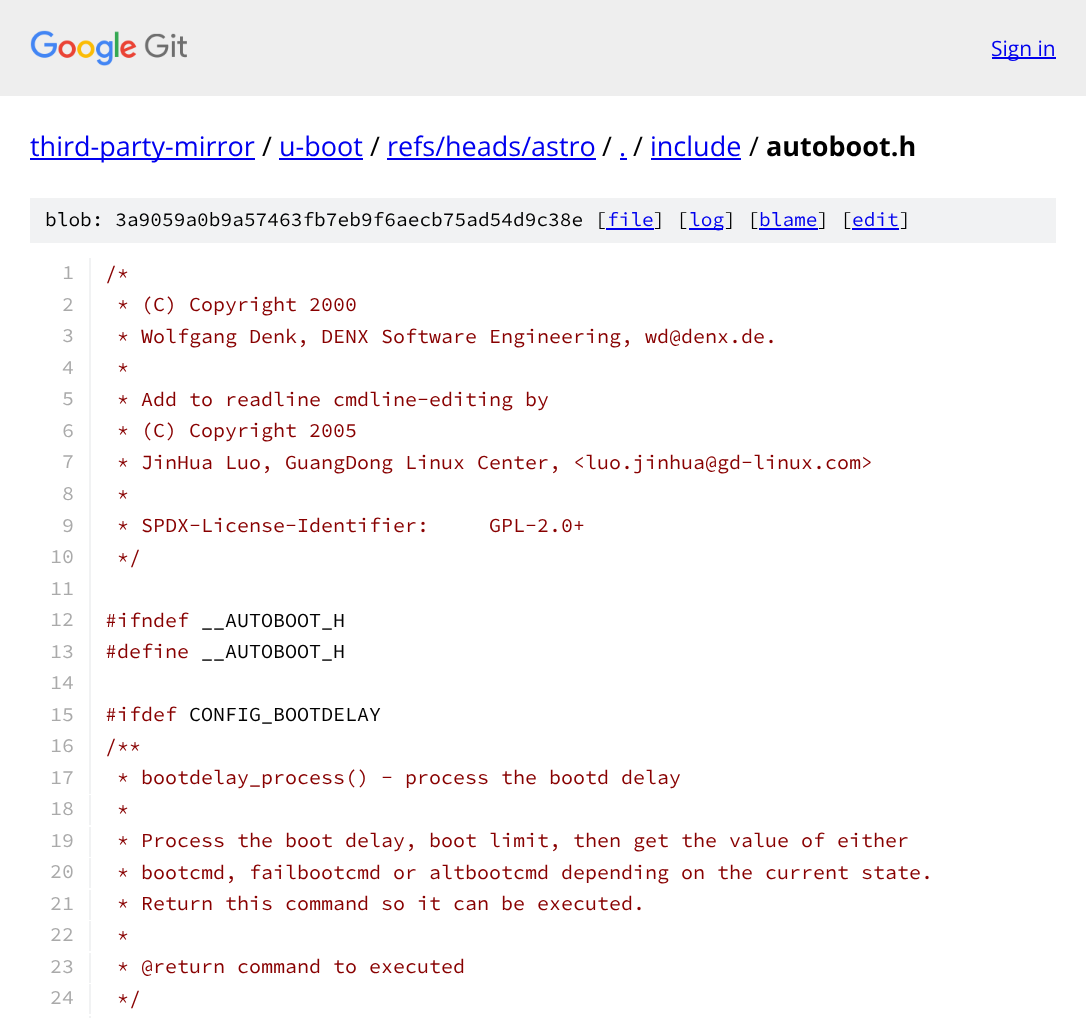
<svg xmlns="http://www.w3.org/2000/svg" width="1086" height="1018">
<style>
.a{font:21px Open Sans;fill:#00e}
.b{font:27px Open Sans;fill:#00e}
.c{font:27px Open Sans;fill:#000}
.d{font:bold 27px Open Sans;fill:#000}
.e{font:200 19.5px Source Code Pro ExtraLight;fill:#000}
.f{font:200 19.5px Source Code Pro ExtraLight;fill:#00e}
.g{font:200 20px Source Code Pro ExtraLight;fill:#aaa}
.h{font:200 20px Source Code Pro ExtraLight;fill:#800}
.i{font:200 20px Source Code Pro ExtraLight;fill:#000}
</style>
<rect width="100%" height="100%" fill="#fff"/>
<path fill="#eee" d="M0 0h1086v96H0z"/>
<image href="1.png" x="30" y="30" width="157" height="36"/>
<path fill="#00e" d="M992 57h64v2H992z"/>
<path fill="#00e" d="M30 158h225v2H30z"/>
<path fill="#00e" d="M279 158h84v2H279z"/>
<path fill="#00e" d="M387 158h209v2H387z"/>
<path fill="#00e" d="M620 158h7v2H620z"/>
<path fill="#00e" d="M651 158h90v2H651z"/>
<path fill="#f1f2f3" d="M30 198h1026v45H30z"/>
<path fill="#00e" d="M606 228h48v2H606z"/>
<path fill="#00e" d="M689 228h34v2H689z"/>
<path fill="#00e" d="M759 228h59v2H759z"/>
<path fill="#00e" d="M852 228h47v2H852z"/>
<path fill="#f1f2f3" d="M89 258h2v536H89z"/>
<path fill="#f1f2f3" d="M89 795h2v30H89z"/>
<path fill="#f1f2f3" d="M89 827h2v30H89z"/>
<path fill="#f1f2f3" d="M89 858h2v30H89z"/>
<path fill="#f1f2f3" d="M89 890h2v30H89z"/>
<path fill="#f1f2f3" d="M89 921h2v30H89z"/>
<path fill="#f1f2f3" d="M89 953h2v30H89z"/>
<path fill="#f1f2f3" d="M89 984h2v30H89z"/>
<path fill="#f1f2f3" d="M89 1016h2v2H89z"/>
<text class="a" x="991" y="56">Sign in</text>
<text class="b" x="30" y="156">third-party-mirror</text>
<text class="c" x="262" y="156">/</text>
<text class="b" x="279" y="156">u-boot</text>
<text class="c" x="370" y="156">/</text>
<text class="b" x="387" y="156">refs/heads/astro</text>
<text class="c" x="602" y="156">/</text>
<text class="b" x="619" y="156">.</text>
<text class="c" x="633" y="156">/</text>
<text class="b" x="650" y="156">include</text>
<text class="c" x="749" y="156">/</text>
<text class="d" x="766" y="156">autoboot.h</text>
<text class="e" x="45" y="226">blob: 3a9059a0b9a57463fb7eb9f6aecb75ad54d9c38e [</text>
<text class="f" x="607" y="226">file</text>
<text class="e" x="653" y="226">] [</text>
<text class="f" x="689" y="226">log</text>
<text class="e" x="724" y="226">] [</text>
<text class="f" x="759" y="226">blame</text>
<text class="e" x="817" y="226">] [</text>
<text class="f" x="852" y="226">edit</text>
<text class="e" x="899" y="226">]</text>
<text class="g" x="62" y="279">1</text>
<text class="h" x="105" y="280">/*</text>
<text class="g" x="62" y="311">2</text>
<text class="h" x="117" y="311">* (C) Copyright 2000</text>
<text class="g" x="62" y="342">3</text>
<text class="h" x="117" y="343">* Wolfgang Denk, DENX Software Engineering, wd@denx.de.</text>
<text class="g" x="62" y="374">4</text>
<text class="h" x="117" y="374">*</text>
<text class="g" x="62" y="405">5</text>
<text class="h" x="117" y="406">* Add to readline cmdline-editing by</text>
<text class="g" x="62" y="437">6</text>
<text class="h" x="117" y="437">* (C) Copyright 2005</text>
<text class="g" x="62" y="468">7</text>
<text class="h" x="117" y="469">* JinHua Luo, GuangDong Linux Center, &lt;luo.jinhua@gd-linux.com&gt;</text>
<text class="g" x="62" y="500">8</text>
<text class="h" x="117" y="501">*</text>
<text class="g" x="62" y="532">9</text>
<text class="h" x="117" y="532">* SPDX-License-Identifier:</text>
<text class="h" x="489" y="532">GPL-2.0+</text>
<text class="g" x="50" y="563">10</text>
<text class="h" x="117" y="564">*/</text>
<text class="g" x="50" y="595">11</text>
<text class="g" x="50" y="626">12</text>
<text class="h" x="105" y="627">#ifndef</text>
<text class="i" x="201" y="627">__AUTOBOOT_H</text>
<text class="g" x="50" y="658">13</text>
<text class="h" x="105" y="658">#define</text>
<text class="i" x="201" y="658">__AUTOBOOT_H</text>
<text class="g" x="50" y="689">14</text>
<text class="g" x="50" y="721">15</text>
<text class="h" x="105" y="721">#ifdef</text>
<text class="i" x="189" y="721">CONFIG_BOOTDELAY</text>
<text class="g" x="50" y="752">16</text>
<text class="h" x="105" y="753">/**</text>
<text class="g" x="50" y="784">17</text>
<text class="h" x="117" y="784">* bootdelay_process() - process the bootd delay</text>
<text class="g" x="50" y="815">18</text>
<text class="h" x="117" y="816">*</text>
<text class="g" x="50" y="847">19</text>
<text class="h" x="117" y="847">* Process the boot delay, boot limit, then get the value of either</text>
<text class="g" x="50" y="878">20</text>
<text class="h" x="117" y="879">* bootcmd, failbootcmd or altbootcmd depending on the current state.</text>
<text class="g" x="50" y="910">21</text>
<text class="h" x="117" y="910">* Return this command so it can be executed.</text>
<text class="g" x="50" y="941">22</text>
<text class="h" x="117" y="942">*</text>
<text class="g" x="50" y="973">23</text>
<text class="h" x="117" y="973">* @return command to executed</text>
<text class="g" x="50" y="1004">24</text>
<text class="h" x="117" y="1005">*/</text>
</svg>
